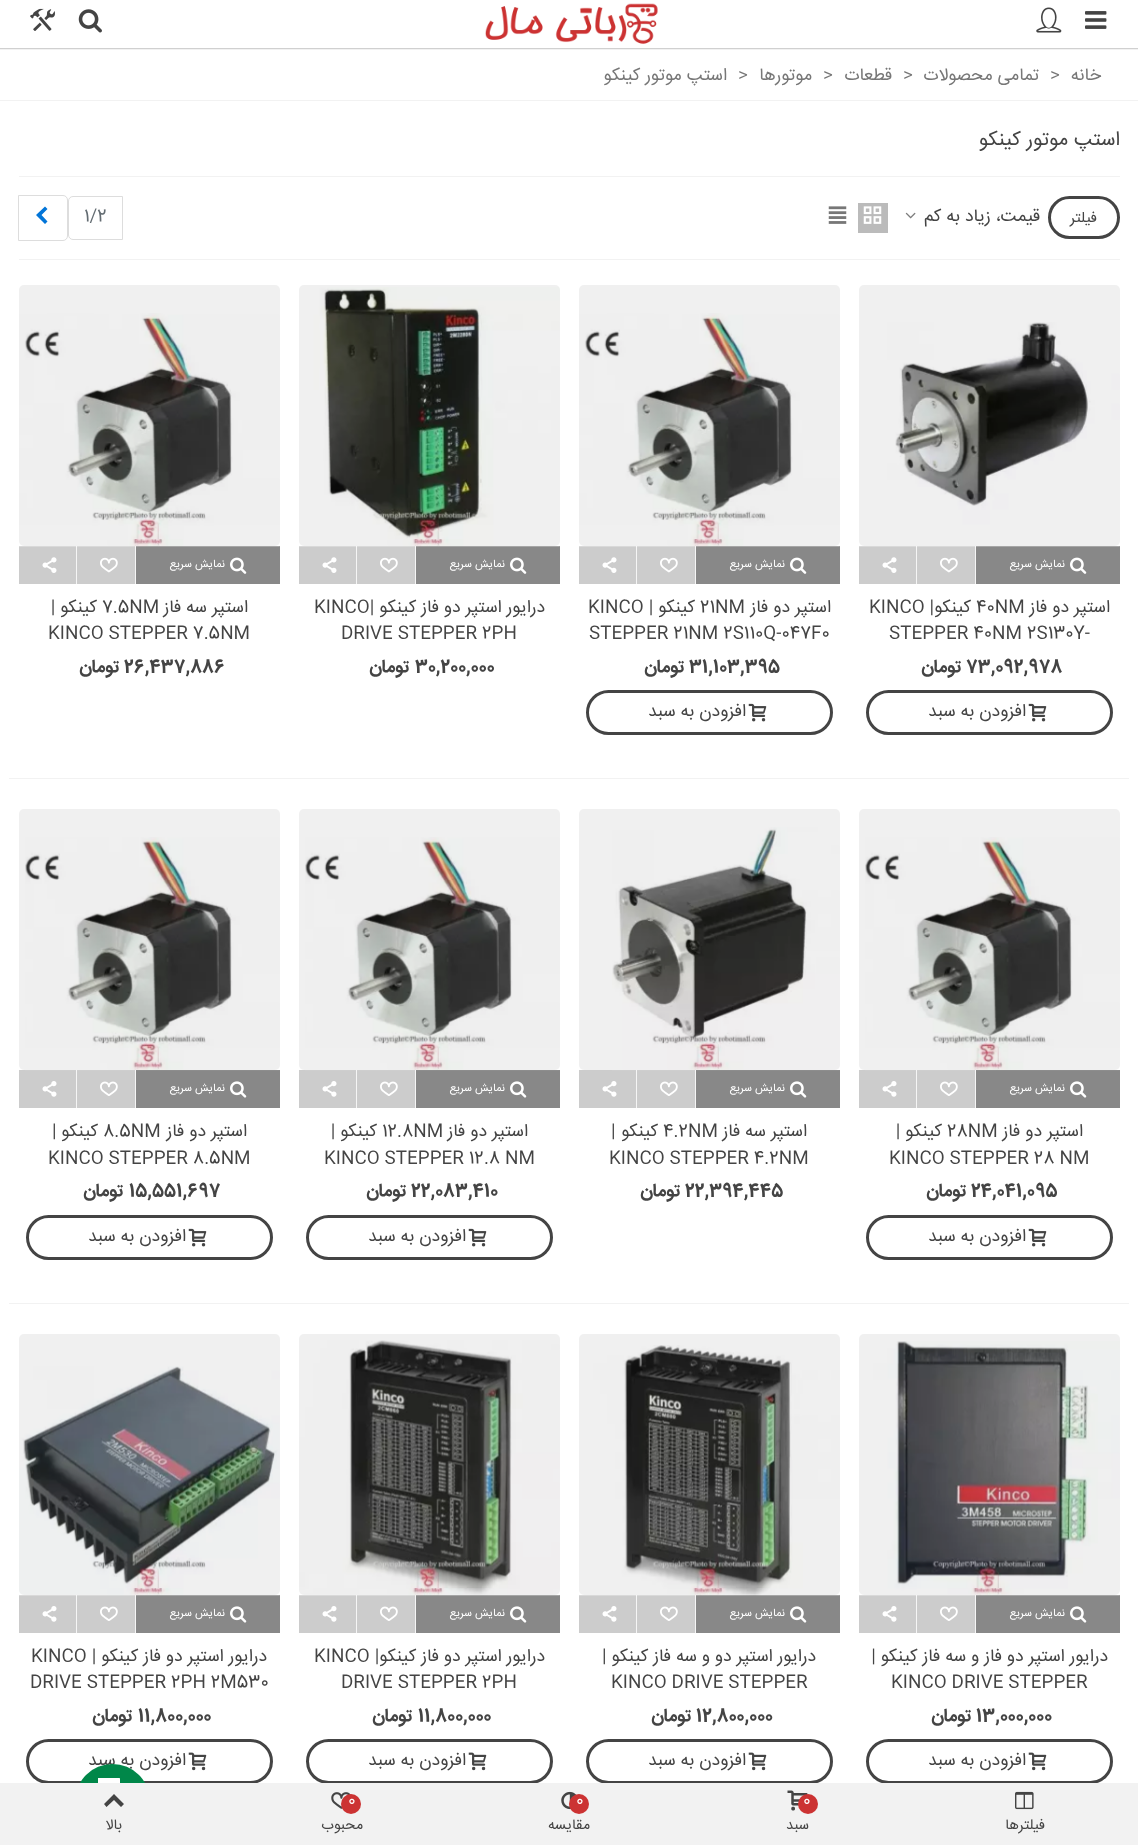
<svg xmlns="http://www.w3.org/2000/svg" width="1138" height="1845">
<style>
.a{font:17.5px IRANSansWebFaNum;direction:rtl;fill:#777}
.b{font:17.5px IRANSansWebFaNum;fill:#777}
.c{font:20px IRANSansWebFaNum;direction:rtl;fill:#444}
.d{font:15px IRANSansWebFaNum;direction:rtl;fill:#444}
.e{font:17.5px IRANSansWebFaNum;direction:rtl;fill:#444}
.f{font:17.5px IRANSansWebFaNum;fill:#636c72}
.g{font:11px IRANSansWebFaNum;direction:rtl;fill:#fff}
.h{font:17.5px IRANSansWebFaNum;fill:#444}
.i{font:bold 18px IRANSansWebFaNum;fill:#444}
.j{font:bold 18px IRANSansWebFaNum;direction:rtl;fill:#444}
.k{font:14.5px IRANSansWebFaNum;direction:rtl;fill:#444}
.l{font:16px IRANSansWebFaNum;fill:#fff}
</style>
<rect width="100%" height="100%" fill="#fff"/>
<path fill="#f2f2f2" d="M0 48v2h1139v-47v45z"/>
<path fill="#d0d0d0" d="M0 48v1h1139v-48v47z"/>
<image href="1.png" x="1085" y="11" width="22" height="18"/>
<image href="2.png" x="1036" y="7" width="26" height="26"/>
<image href="3.png" x="485" y="3" width="173" height="41"/>
<image href="4.png" x="78" y="9" width="24" height="24"/>
<image href="5.png" x="30" y="8" width="25" height="23"/>
<path fill="#f2f2f2" d="M0 100h1138v1H0z"/>
<path fill="#f2f2f2" d="M19 176h1101v1H19z"/>
<path fill="#f2f2f2" d="M19 259h1101v1H19z"/>
<rect fill="none" stroke="#444" stroke-width="3" x="1049.5" y="197.5" width="69" height="40" rx="20"/>
<image href="6.png" x="905" y="212" width="11" height="7"/>
<path fill="#bbb" d="M858 203h30v30H858z"/>
<image href="7.png" x="863" y="206" width="19" height="18"/>
<image href="8.png" x="828" y="206" width="19" height="18"/>
<path fill="none" stroke="#ddd" d="M73 196.5h49.5v43h-49.5c-2.5 0-4.5-2-4.5-4.5v-34c0-2.5 2-4.5 4.5-4.5z"/>
<path fill="none" stroke="#ddd" d="M18.5 195.5h44.5c2.5 0 4.5 2 4.5 4.5v36c0 2.5-2 4.5-4.5 4.5h-44.5z"/>
<path fill="#0275d8" d="M36 215l9-8.5l2.5 2.5l-6 6l6 6.5l-2.5 2.5z"/>
<path fill="#ccc" d="M859 546h116v38H859z"/>
<path fill="#888" d="M976 546h144v38H976z"/>
<path fill="#f5f5f5" d="M975 546h1v38H975z"/>
<path fill="#f5f5f5" d="M916 546h1v38H916z"/>
<image href="9.png" x="859" y="322" width="261" height="225"/>
<rect fill="#2f2b2b12" x="859" y="285" width="261" height="261" rx="5"/>
<image href="10.png" x="1070" y="557" width="17" height="17"/>
<image href="11.png" x="940" y="557" width="18" height="16"/>
<image href="12.png" x="882" y="557" width="15" height="16"/>
<rect fill="none" stroke="#444" stroke-width="3" x="867.5" y="691.5" width="244" height="42" rx="21"/>
<image href="13.png" x="1028" y="703" width="19" height="19"/>
<path fill="#ccc" d="M579 546h116v38H579z"/>
<path fill="#888" d="M696 546h144v38H696z"/>
<path fill="#f5f5f5" d="M695 546h1v38H695z"/>
<path fill="#f5f5f5" d="M636 546h1v38H636z"/>
<image href="14.png" x="579" y="313" width="261" height="234"/>
<rect fill="#2f2b2b12" x="579" y="285" width="261" height="261" rx="5"/>
<image href="10.png" x="790" y="557" width="17" height="17"/>
<image href="11.png" x="660" y="557" width="18" height="16"/>
<image href="12.png" x="602" y="557" width="15" height="16"/>
<rect fill="none" stroke="#444" stroke-width="3" x="587.5" y="691.5" width="244" height="42" rx="21"/>
<image href="13.png" x="748" y="703" width="19" height="19"/>
<path fill="#ccc" d="M299 546h116v38H299z"/>
<path fill="#888" d="M416 546h144v38H416z"/>
<path fill="#f5f5f5" d="M415 546h1v38H415z"/>
<path fill="#f5f5f5" d="M356 546h1v38H356z"/>
<image href="15.png" x="299" y="287" width="261" height="260"/>
<rect fill="#2f2b2b12" x="299" y="285" width="261" height="261" rx="5"/>
<image href="10.png" x="510" y="557" width="17" height="17"/>
<image href="11.png" x="380" y="557" width="18" height="16"/>
<image href="12.png" x="322" y="557" width="15" height="16"/>
<path fill="#ccc" d="M19 546h116v38H19z"/>
<path fill="#888" d="M136 546h144v38H136z"/>
<path fill="#f5f5f5" d="M135 546h1v38H135z"/>
<path fill="#f5f5f5" d="M76 546h1v38H76z"/>
<image href="14.png" x="19" y="313" width="261" height="234"/>
<rect fill="#2f2b2b12" x="19" y="285" width="261" height="261" rx="5"/>
<image href="10.png" x="230" y="557" width="17" height="17"/>
<image href="11.png" x="100" y="557" width="18" height="16"/>
<image href="12.png" x="42" y="557" width="15" height="16"/>
<path fill="#f2f2f2" d="M9 778h1120v1H9z"/>
<path fill="#ccc" d="M859 1070h116v38H859z"/>
<path fill="#888" d="M976 1070h144v38H976z"/>
<path fill="#f5f5f5" d="M975 1070h1v38H975z"/>
<path fill="#f5f5f5" d="M916 1070h1v38H916z"/>
<image href="16.png" x="865" y="837" width="255" height="234"/>
<rect fill="#2f2b2b12" x="859" y="809" width="261" height="261" rx="5"/>
<image href="17.png" x="1070" y="1081" width="17" height="17"/>
<image href="18.png" x="940" y="1081" width="18" height="15"/>
<image href="19.png" x="882" y="1081" width="15" height="16"/>
<rect fill="none" stroke="#444" stroke-width="3" x="867.5" y="1216.5" width="244" height="42" rx="21"/>
<image href="13.png" x="1028" y="1228" width="19" height="19"/>
<path fill="#ccc" d="M579 1070h116v38H579z"/>
<path fill="#888" d="M696 1070h144v38H696z"/>
<path fill="#f5f5f5" d="M695 1070h1v38H695z"/>
<path fill="#f5f5f5" d="M636 1070h1v38H636z"/>
<image href="20.png" x="612" y="827" width="228" height="244"/>
<rect fill="#2f2b2b12" x="579" y="809" width="261" height="261" rx="5"/>
<image href="17.png" x="790" y="1081" width="17" height="17"/>
<image href="18.png" x="660" y="1081" width="18" height="15"/>
<image href="19.png" x="602" y="1081" width="15" height="16"/>
<path fill="#ccc" d="M299 1070h116v38H299z"/>
<path fill="#888" d="M416 1070h144v38H416z"/>
<path fill="#f5f5f5" d="M415 1070h1v38H415z"/>
<path fill="#f5f5f5" d="M356 1070h1v38H356z"/>
<image href="16.png" x="305" y="837" width="255" height="234"/>
<rect fill="#2f2b2b12" x="299" y="809" width="261" height="261" rx="5"/>
<image href="17.png" x="510" y="1081" width="17" height="17"/>
<image href="18.png" x="380" y="1081" width="18" height="15"/>
<image href="19.png" x="322" y="1081" width="15" height="16"/>
<rect fill="none" stroke="#444" stroke-width="3" x="307.5" y="1216.5" width="244" height="42" rx="21"/>
<image href="13.png" x="468" y="1228" width="19" height="19"/>
<path fill="#ccc" d="M19 1070h116v38H19z"/>
<path fill="#888" d="M136 1070h144v38H136z"/>
<path fill="#f5f5f5" d="M135 1070h1v38H135z"/>
<path fill="#f5f5f5" d="M76 1070h1v38H76z"/>
<image href="16.png" x="25" y="837" width="255" height="234"/>
<rect fill="#2f2b2b12" x="19" y="809" width="261" height="261" rx="5"/>
<image href="17.png" x="230" y="1081" width="17" height="17"/>
<image href="18.png" x="100" y="1081" width="18" height="15"/>
<image href="19.png" x="42" y="1081" width="15" height="16"/>
<rect fill="none" stroke="#444" stroke-width="3" x="27.5" y="1216.5" width="244" height="42" rx="21"/>
<image href="13.png" x="188" y="1228" width="19" height="19"/>
<path fill="#f2f2f2" d="M9 1303h1120v1H9z"/>
<path fill="#ccc" d="M859 1595h116v38H859z"/>
<path fill="#888" d="M976 1595h144v38H976z"/>
<path fill="#f5f5f5" d="M975 1595h1v38H975z"/>
<path fill="#f5f5f5" d="M916 1595h1v38H916z"/>
<image href="21.png" x="859" y="1341" width="261" height="255"/>
<rect fill="#2f2b2b12" x="859" y="1334" width="261" height="261" rx="5"/>
<image href="17.png" x="1070" y="1606" width="17" height="17"/>
<image href="18.png" x="940" y="1606" width="18" height="15"/>
<image href="19.png" x="882" y="1606" width="15" height="16"/>
<rect fill="none" stroke="#444" stroke-width="3" x="867.5" y="1740.5" width="244" height="42" rx="21"/>
<image href="22.png" x="1028" y="1752" width="19" height="19"/>
<path fill="#ccc" d="M579 1595h116v38H579z"/>
<path fill="#888" d="M696 1595h144v38H696z"/>
<path fill="#f5f5f5" d="M695 1595h1v38H695z"/>
<path fill="#f5f5f5" d="M636 1595h1v38H636z"/>
<image href="23.png" x="579" y="1345" width="261" height="251"/>
<rect fill="#2f2b2b12" x="579" y="1334" width="261" height="261" rx="5"/>
<image href="17.png" x="790" y="1606" width="17" height="17"/>
<image href="18.png" x="660" y="1606" width="18" height="15"/>
<image href="19.png" x="602" y="1606" width="15" height="16"/>
<rect fill="none" stroke="#444" stroke-width="3" x="587.5" y="1740.5" width="244" height="42" rx="21"/>
<image href="22.png" x="748" y="1752" width="19" height="19"/>
<path fill="#ccc" d="M299 1595h116v38H299z"/>
<path fill="#888" d="M416 1595h144v38H416z"/>
<path fill="#f5f5f5" d="M415 1595h1v38H415z"/>
<path fill="#f5f5f5" d="M356 1595h1v38H356z"/>
<image href="24.png" x="299" y="1340" width="261" height="256"/>
<rect fill="#2f2b2b12" x="299" y="1334" width="261" height="261" rx="5"/>
<image href="17.png" x="510" y="1606" width="17" height="17"/>
<image href="18.png" x="380" y="1606" width="18" height="15"/>
<image href="19.png" x="322" y="1606" width="15" height="16"/>
<rect fill="none" stroke="#444" stroke-width="3" x="307.5" y="1740.5" width="244" height="42" rx="21"/>
<image href="22.png" x="468" y="1752" width="19" height="19"/>
<path fill="#ccc" d="M19 1595h116v38H19z"/>
<path fill="#888" d="M136 1595h144v38H136z"/>
<path fill="#f5f5f5" d="M135 1595h1v38H135z"/>
<path fill="#f5f5f5" d="M76 1595h1v38H76z"/>
<image href="25.png" x="19" y="1366" width="261" height="230"/>
<rect fill="#2f2b2b12" x="19" y="1334" width="261" height="261" rx="5"/>
<image href="17.png" x="230" y="1606" width="17" height="17"/>
<image href="18.png" x="100" y="1606" width="18" height="15"/>
<image href="19.png" x="42" y="1606" width="15" height="16"/>
<rect fill="none" stroke="#444" stroke-width="3" x="27.5" y="1740.5" width="244" height="42" rx="21"/>
<image href="22.png" x="188" y="1752" width="19" height="19"/>
<text class="a" x="1101" y="80">خانه</text>
<text class="b" x="1050" y="80">&gt;</text>
<text class="a" x="1039" y="80">تمامی محصولات</text>
<text class="b" x="903" y="80">&gt;</text>
<text class="a" x="892" y="80">قطعات</text>
<text class="b" x="823" y="80">&gt;</text>
<text class="a" x="812" y="80">موتورها</text>
<text class="b" x="738" y="80">&gt;</text>
<text class="a" x="727" y="80">استپ موتور کینکو</text>
<text class="c" x="1120" y="145">استپ موتور کینکو</text>
<text class="d" x="1097" y="222">فیلتر</text>
<text class="e" x="1040" y="221">قیمت، زیاد به کم</text>
<text class="f" x="84" y="221">1/2</text>
<text class="g" x="1065" y="567">نمایش سریع</text>
<text class="e" x="1110" y="612">استپر دو فاز</text>
<text class="h" x="976" y="612">40NM</text>
<text class="e" x="971" y="612">کینکو|</text>
<text class="h" x="869" y="612">KINCO</text>
<text class="h" x="889" y="638">STEPPER 40NM 2S130Y-</text>
<text class="i" x="966" y="672">73,092,978</text>
<text class="j" x="962" y="672">تومان</text>
<text class="e" x="1026" y="716">افزودن به سبد</text>
<text class="g" x="785" y="567">نمایش سریع</text>
<text class="e" x="831" y="612">استپر دو فاز</text>
<text class="h" x="700" y="612">21NM</text>
<text class="e" x="695" y="612">کینکو |</text>
<text class="h" x="588" y="612">KINCO</text>
<text class="h" x="589" y="638">STEPPER 21NM 2S110Q-047F0</text>
<text class="i" x="689" y="672">31,103,395</text>
<text class="j" x="685" y="672">تومان</text>
<text class="e" x="746" y="716">افزودن به سبد</text>
<text class="g" x="505" y="567">نمایش سریع</text>
<text class="e" x="545" y="612">درایور استپر دو فاز کینکو |</text>
<text class="h" x="314" y="612">KINCO</text>
<text class="h" x="341" y="638">DRIVE STEPPER 2PH</text>
<text class="i" x="415" y="672">30,200,000</text>
<text class="j" x="410" y="672">تومان</text>
<text class="g" x="225" y="567">نمایش سریع</text>
<text class="e" x="248" y="612">استپر سه فاز</text>
<text class="h" x="102" y="612">7.5NM</text>
<text class="e" x="97" y="612">کینکو |</text>
<text class="h" x="48" y="638">KINCO STEPPER 7.5NM</text>
<text class="i" x="124" y="672">26,437,886</text>
<text class="j" x="120" y="672">تومان</text>
<text class="g" x="1065" y="1091">نمایش سریع</text>
<text class="e" x="1083" y="1136">استپر دو فاز</text>
<text class="h" x="947" y="1136">28NM</text>
<text class="e" x="942" y="1136">کینکو |</text>
<text class="h" x="889" y="1163">KINCO STEPPER 28 NM</text>
<text class="i" x="971" y="1196">24,041,095</text>
<text class="j" x="967" y="1196">تومان</text>
<text class="e" x="1026" y="1241">افزودن به سبد</text>
<text class="g" x="785" y="1091">نمایش سریع</text>
<text class="e" x="807" y="1136">استپر سه فاز</text>
<text class="h" x="663" y="1136">4.2NM</text>
<text class="e" x="658" y="1136">کینکو</text>
<text class="h" x="611" y="1136">|</text>
<text class="h" x="609" y="1163">KINCO STEPPER 4.2NM</text>
<text class="i" x="685" y="1196">22,394,445</text>
<text class="j" x="681" y="1196">تومان</text>
<text class="g" x="505" y="1091">نمایش سریع</text>
<text class="e" x="528" y="1136">استپر دو فاز</text>
<text class="h" x="382" y="1136">12.8NM</text>
<text class="e" x="377" y="1136">کینکو |</text>
<text class="h" x="324" y="1163">KINCO STEPPER 12.8 NM</text>
<text class="i" x="411" y="1196">22,083,410</text>
<text class="j" x="407" y="1196">تومان</text>
<text class="e" x="466" y="1241">افزودن به سبد</text>
<text class="g" x="225" y="1091">نمایش سریع</text>
<text class="e" x="247" y="1136">استپر دو فاز</text>
<text class="h" x="103" y="1136">8.5NM</text>
<text class="e" x="98" y="1136">کینکو</text>
<text class="h" x="52" y="1136">|</text>
<text class="h" x="48" y="1163">KINCO STEPPER 8.5NM</text>
<text class="i" x="129" y="1196">15,551,697</text>
<text class="j" x="124" y="1196">تومان</text>
<text class="e" x="186" y="1241">افزودن به سبد</text>
<text class="g" x="1065" y="1616">نمایش سریع</text>
<text class="e" x="1108" y="1661">درایور استپر دو فاز و سه فاز کینکو |</text>
<text class="h" x="891" y="1687">KINCO DRIVE STEPPER</text>
<text class="i" x="976" y="1721">13,000,000</text>
<text class="j" x="972" y="1721">تومان</text>
<text class="e" x="1026" y="1765">افزودن به سبد</text>
<text class="g" x="785" y="1616">نمایش سریع</text>
<text class="e" x="816" y="1661">درایور استپر دو</text>
<text class="e" x="710" y="1661">و سه فاز کینکو |</text>
<text class="h" x="611" y="1687">KINCO DRIVE STEPPER</text>
<text class="i" x="696" y="1721">12,800,000</text>
<text class="j" x="692" y="1721">تومان</text>
<text class="e" x="746" y="1765">افزودن به سبد</text>
<text class="g" x="505" y="1616">نمایش سریع</text>
<text class="e" x="545" y="1661">درایور استپر دو فاز کینکو|</text>
<text class="h" x="314" y="1661">KINCO</text>
<text class="h" x="341" y="1687">DRIVE STEPPER 2PH</text>
<text class="i" x="418" y="1721">11,800,000</text>
<text class="j" x="413" y="1721">تومان</text>
<text class="e" x="466" y="1765">افزودن به سبد</text>
<text class="g" x="225" y="1616">نمایش سریع</text>
<text class="e" x="267" y="1661">درایور استپر دو فاز کینکو |</text>
<text class="h" x="31" y="1661">KINCO</text>
<text class="h" x="30" y="1687">DRIVE STEPPER 2PH 2M530</text>
<text class="i" x="138" y="1721">11,800,000</text>
<text class="j" x="133" y="1721">تومان</text>
<text class="e" x="186" y="1765">افزودن به سبد</text>
<circle fill="#008749" cx="112.5" cy="1801.5" r="37.5"/>
<path fill="#f2f2f2" d="M0 1783h1138v62H0z"/>
<text class="k" x="1045" y="1829">فیلترها</text>
<image href="26.png" x="1015" y="1791" width="19" height="19"/>
<text class="k" x="122" y="1829">بالا</text>
<path fill="#444" d="M104 1804l10-10l10 10l-3 3l-7-7l-7.5 7z"/>
<image href="29.png" x="331" y="1792" width="20" height="17"/>
<circle fill="#c33" cx="351" cy="1804" r="10"/>
<text class="l" x="348" y="1805">0</text>
<text class="k" x="363" y="1829">محبوب‌</text>
<image href="28.png" x="561" y="1791" width="16" height="19"/>
<circle fill="#c33" cx="579" cy="1804" r="10"/>
<text class="l" x="576" y="1805">0</text>
<text class="k" x="590" y="1829">مقایسه</text>
<image href="27.png" x="787" y="1790" width="21" height="21"/>
<circle fill="#c33" cx="808" cy="1804" r="10"/>
<text class="l" x="803" y="1805">0</text>
<text class="k" x="809" y="1829">سبد</text>
<image href="30.png" x="98" y="1778" width="22" height="5"/>
</svg>
